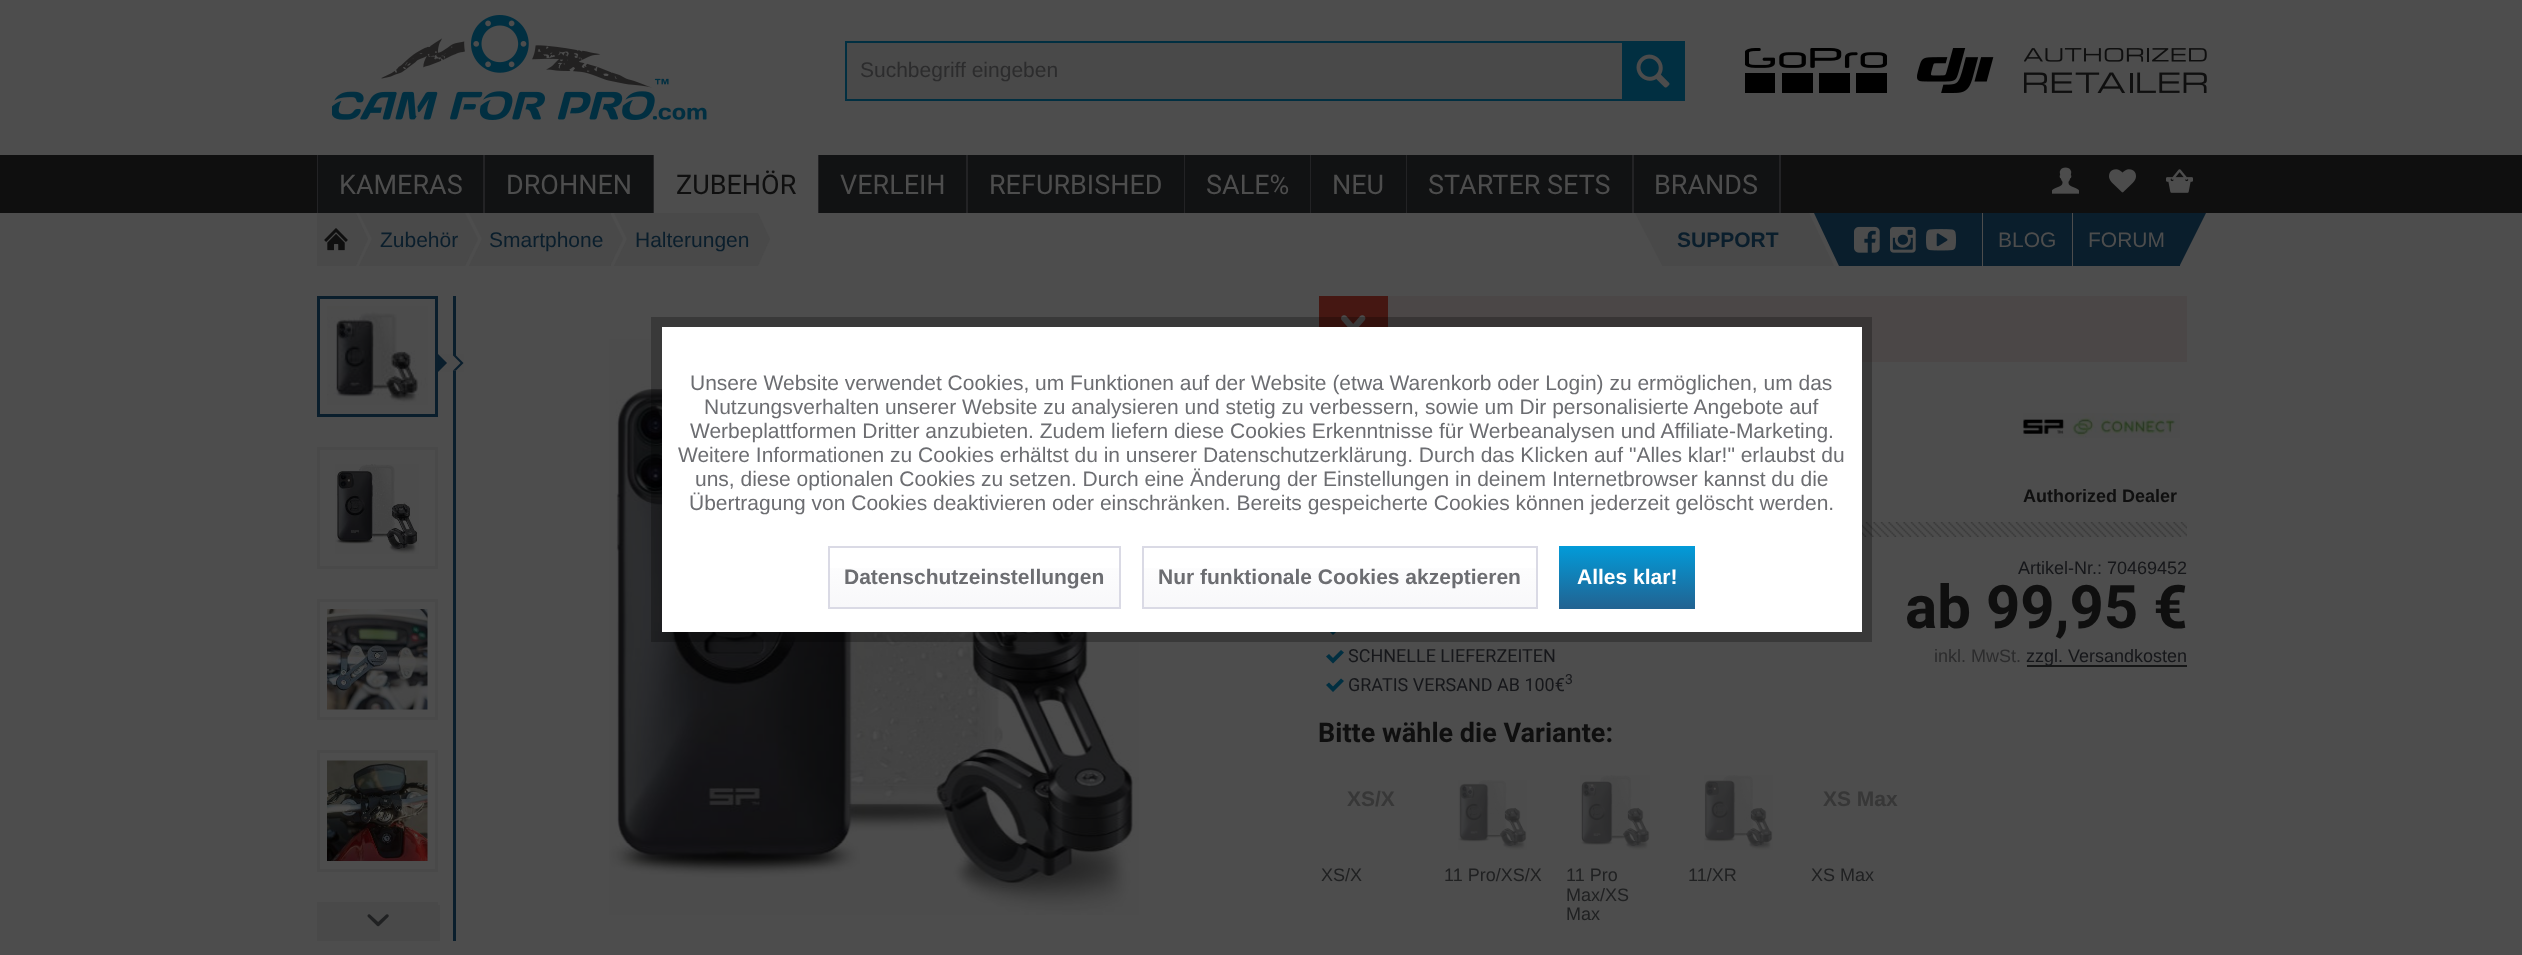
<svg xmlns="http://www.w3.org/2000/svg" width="2522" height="955">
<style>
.a{font:21px Liberation Sans;fill:#2c2c2d}
.b{font:27px Roboto;fill:#4d4d4d}
.c{font:27px Roboto;fill:#0f0f0f}
.d{font:21px Liberation Sans;fill:#0a1e2c}
.e{font:bold 21px Liberation Sans;fill:#0a1e2c}
.f{font:21px Liberation Sans;fill:#4d4d4d}
.g{font:bold 18px Liberation Sans;fill:#0f0f0f}
.h{font:18px Liberation Sans;fill:#16171a}
.i{font:bold 60px Roboto;fill:#0f0f0f}
.j{font:18px Liberation Sans;fill:#2c2c2d}
.k{font:18px Roboto;fill:#16171a}
.l{font:14px Roboto;fill:#16171a}
.m{font:bold 27px Roboto;fill:#0f0f0f}
.n{font:bold 21px Liberation Sans;fill:#373737}
.o{font:18px Liberation Sans;fill:#202122}
.p{font:21px Liberation Sans;fill:#6c6d71}
.q{font:bold 21px Liberation Sans;fill:#6c6d71}
.r{font:bold 21px Liberation Sans;fill:#fff}
</style>
<defs>
<clipPath id="clip1"><path d="M317 296h165v645H317z"/></clipPath>
<linearGradient id="g1" gradientUnits="userSpaceOnUse" x1="974" y1="547" x2="974" y2="607"><stop offset="0" stop-color="#fff"/><stop offset="1" stop-color="#f8f8fa"/></linearGradient>
<linearGradient id="g2" gradientUnits="userSpaceOnUse" x1="1340" y1="547" x2="1340" y2="607"><stop offset="0" stop-color="#fff"/><stop offset="1" stop-color="#f8f8fa"/></linearGradient>
<linearGradient id="g3" gradientUnits="userSpaceOnUse" x1="1627" y1="545" x2="1627" y2="608"><stop offset="0" stop-color="#029cda"/><stop offset="1" stop-color="#216392"/></linearGradient>
</defs>
<rect width="100%" height="100%" fill="#4d4d4d"/>
<image href="1.png" x="332" y="15" width="375" height="105"/>
<path fill="#494949" d="M847 43h775v56H847z"/>
<path fill="none" stroke="#012f41" stroke-width="2" d="M846 42h838v58H846z"/>
<path fill="#012f41" d="M1622 43h61v56H1622z"/>
<image href="2.png" x="1636" y="54" width="34" height="34"/>
<image href="3.png" x="1745" y="48" width="142" height="45"/>
<image href="4.png" x="1917" y="48" width="77" height="45"/>
<image href="5.png" x="2024" y="48" width="183" height="45"/>
<path fill="#0f0f0f" d="M0 155h2522v58H0z"/>
<path fill="#232325" d="M483 155h2v58H483z"/>
<path fill="#232325" d="M317 155h1v58H317z"/>
<path fill="#111213" d="M318 155h165v58H318z"/>
<path fill="#232325" d="M653 155h1v58H653z"/>
<path fill="#111213" d="M485 155h168v58H485z"/>
<path fill="#232325" d="M818 155h1v58H818z"/>
<path fill="#4d4d4d" d="M654 155h164v58H654z"/>
<path fill="#232325" d="M966 155h2v58H966z"/>
<path fill="#111213" d="M819 155h147v58H819z"/>
<path fill="#232325" d="M1184 155h1v58H1184z"/>
<path fill="#111213" d="M968 155h216v58H968z"/>
<path fill="#232325" d="M1310 155h1v58H1310z"/>
<path fill="#111213" d="M1185 155h125v58H1185z"/>
<path fill="#232325" d="M1406 155h1v58H1406z"/>
<path fill="#111213" d="M1311 155h95v58H1311z"/>
<path fill="#232325" d="M1632 155h2v58H1632z"/>
<path fill="#111213" d="M1407 155h225v58H1407z"/>
<path fill="#232325" d="M1779 155h2v58H1779z"/>
<path fill="#111213" d="M1634 155h145v58H1634z"/>
<image href="6.png" x="2052" y="167" width="27" height="27"/>
<image href="7.png" x="2109" y="169" width="27" height="24"/>
<image href="8.png" x="2166" y="169" width="27" height="24"/>
<path fill="#494949" d="M317 213h39v53H317z"/>
<image href="9.png" x="324" y="228" width="24" height="23"/>
<path fill="#494949" d="M356 213l12 26l-12 27"/>
<path fill="#494949" d="M359 213l13 26l-13 27h13v-53"/>
<path fill="#494949" d="M372 213h93v53H372z"/>
<path fill="#494949" d="M465 213l13 26l-13 27"/>
<path fill="#494949" d="M469 213l13 26l-13 27h13v-53"/>
<path fill="#494949" d="M482 213h129v53H482z"/>
<path fill="#494949" d="M610 213l13 26l-13 27"/>
<path fill="#494949" d="M614 213l13 26l-13 27h13v-53"/>
<path fill="#494949" d="M627 213h131v53H627z"/>
<path fill="#494949" d="M758 213l12 26l-12 27"/>
<path fill="#494949" d="M1662 213v52l-27-52"/>
<path fill="#494949" d="M1662 213h147v53H1662z"/>
<path fill="#494949" d="M1809 213l25 53h-25"/>
<path fill="#0a1e2c" d="M1839 213v53l-25-53"/>
<path fill="#0a1e2c" d="M1839 213h143v53H1839z"/>
<image href="10.png" x="1854" y="226" width="26" height="27"/>
<image href="11.png" x="1890" y="226" width="26" height="27"/>
<image href="12.png" x="1926" y="229" width="30" height="22"/>
<path fill="#0a1e2c" d="M1983 213h89v53H1983z"/>
<path fill="#0a1e2c" d="M2073 213h107v53H2073z"/>
<path fill="#0a1e2c" d="M2180 213v52l26-52"/>
<path fill="#0a1e2c" d="M453 296h3v645H453z"/>
<path fill="none" stroke="#0a1e2c" stroke-width="3" d="M318.5 297.5h118v118H318.5z"/>
<image href="13.png" x="327" y="306" width="101" height="99"/>
<image href="14.png" x="438" y="354" width="26" height="18"/>
<path fill="none" stroke="#494949" stroke-width="3" d="M318.5 448.5h118v119H318.5z"/>
<image href="15.png" x="335" y="464" width="84" height="90"/>
<path fill="none" stroke="#494949" stroke-width="3" d="M318.5 600.5h118v118H318.5z"/>
<image href="16.png" x="327" y="609" width="101" height="101"/>
<path fill="none" stroke="#494949" stroke-width="3" d="M318.5 751.5h118v119H318.5z"/>
<image href="17.png" x="327" y="760" width="101" height="101"/>
<g clip-path="url(#clip1)">
<path fill="none" stroke="#494949" stroke-width="3" d="M318.5 903.5h118v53H318.5z"/>
</g>
<path fill="#494949" d="M320 905h120v36H320z"/>
<image href="18.png" x="367" y="914" width="22" height="13"/>
<image href="19.png" x="609" y="339" width="530" height="576"/>
<path fill="#4b4747" d="M1388 296h799v66H1388z"/>
<path fill="#451712" d="M1319 296h69v31H1319z"/>
<image href="20.png" x="1341" y="315" width="25" height="12"/>
<image href="21.png" x="1862" y="522" width="325" height="15"/>
<image href="22.png" x="2023" y="413" width="157" height="25"/>
<path fill="#161717" d="M2027 665h160v2H2027z"/>
<path fill="#012f41" d="M1341 621.5l-8 8l-4-4l-3 2.5l7 7l11-11z"/>
<path fill="#012f41" d="M1341 650l-8 8l-4-4l-3 2.5l7 7l11-11z"/>
<path fill="#012f41" d="M1341 678.5l-8 8l-4-4l-3 2.5l7 7l11-11z"/>
<image href="23.png" x="1458" y="780" width="69" height="70"/>
<image href="24.png" x="1580" y="775" width="70" height="75"/>
<image href="25.png" x="1704" y="775" width="69" height="75"/>
<path fill="none" stroke="#00000040" stroke-width="11" d="M656.5 322.5h1210v314H656.5z"/>
<path fill="#fff" d="M662 327h1200v305H662z"/>
<path fill="url(#g1)" d="M830 568h289v39H830z"/>
<path fill="none" stroke="#dadae5" stroke-width="2" d="M829 547h291v61H829z"/>
<path fill="url(#g2)" d="M1144 568h392v39H1144z"/>
<path fill="none" stroke="#dadae5" stroke-width="2" d="M1143 547h394v61H1143z"/>
<path fill="url(#g3)" d="M1559 546h136v63H1559z"/>
<text class="a" x="860" y="77">Suchbegriff eingeben</text>
<text class="b" x="339" y="194">KAMERAS</text>
<text class="b" x="506" y="194">DROHNEN</text>
<text class="c" x="676" y="194">ZUBEHÖR</text>
<text class="b" x="840" y="194">VERLEIH</text>
<text class="b" x="989" y="194">REFURBISHED</text>
<text class="b" x="1206" y="194">SALE%</text>
<text class="b" x="1332" y="194">NEU</text>
<text class="b" x="1428" y="194">STARTER SETS</text>
<text class="b" x="1654" y="194">BRANDS</text>
<text class="d" x="380" y="247">Zubehör</text>
<text class="d" x="489" y="247">Smartphone</text>
<text class="d" x="635" y="247">Halterungen</text>
<text class="e" x="1677" y="247">SUPPORT</text>
<text class="f" x="1998" y="247">BLOG</text>
<text class="f" x="2088" y="247">FORUM</text>
<text class="g" x="2023" y="502">Authorized Dealer</text>
<text class="h" x="2018" y="574">Artikel-Nr.: 70469452</text>
<text class="i" x="1905" y="628">ab 99,95 €</text>
<text class="j" x="1934" y="662">inkl. MwSt.</text>
<text class="h" x="2026" y="662">zzgl. Versandkosten</text>
<text class="k" x="1348" y="662">SCHNELLE LIEFERZEITEN</text>
<text class="k" x="1348" y="691">GRATIS VERSAND AB 100€</text>
<text class="l" x="1565" y="684">3</text>
<text class="m" x="1318" y="742">Bitte wähle die Variante:</text>
<text class="n" x="1347" y="806">XS/X</text>
<text class="o" x="1321" y="881">XS/X</text>
<text class="o" x="1444" y="881">11 Pro/XS/X</text>
<text class="o" x="1566" y="881">11 Pro</text>
<text class="o" x="1566" y="901">Max/XS</text>
<text class="o" x="1566" y="920">Max</text>
<text class="o" x="1688" y="881">11/XR</text>
<text class="n" x="1823" y="806">XS Max</text>
<text class="o" x="1811" y="881">XS Max</text>
<text class="p" x="690" y="390">Unsere Website verwendet Cookies, um Funktionen auf der Website (etwa Warenkorb oder Login) zu ermöglichen, um das</text>
<text class="p" x="704" y="414">Nutzungsverhalten unserer Website zu analysieren und stetig zu verbessern, sowie um Dir personalisierte Angebote auf</text>
<text class="p" x="690" y="438">Werbeplattformen Dritter anzubieten. Zudem liefern diese Cookies Erkenntnisse für Werbeanalysen und Affiliate-Marketing.</text>
<text class="p" x="678" y="462">Weitere Informationen zu Cookies erhältst du in unserer Datenschutzerklärung. Durch das Klicken auf "Alles klar!" erlaubst du</text>
<text class="p" x="695" y="486">uns, diese optionalen Cookies zu setzen. Durch eine Änderung der Einstellungen in deinem Internetbrowser kannst du die</text>
<text class="p" x="689" y="510">Übertragung von Cookies deaktivieren oder einschränken. Bereits gespeicherte Cookies können jederzeit gelöscht werden.</text>
<text class="q" x="844" y="584">Datenschutzeinstellungen</text>
<text class="q" x="1158" y="584">Nur funktionale Cookies akzeptieren</text>
<text class="r" x="1577" y="584">Alles klar!</text>
</svg>
